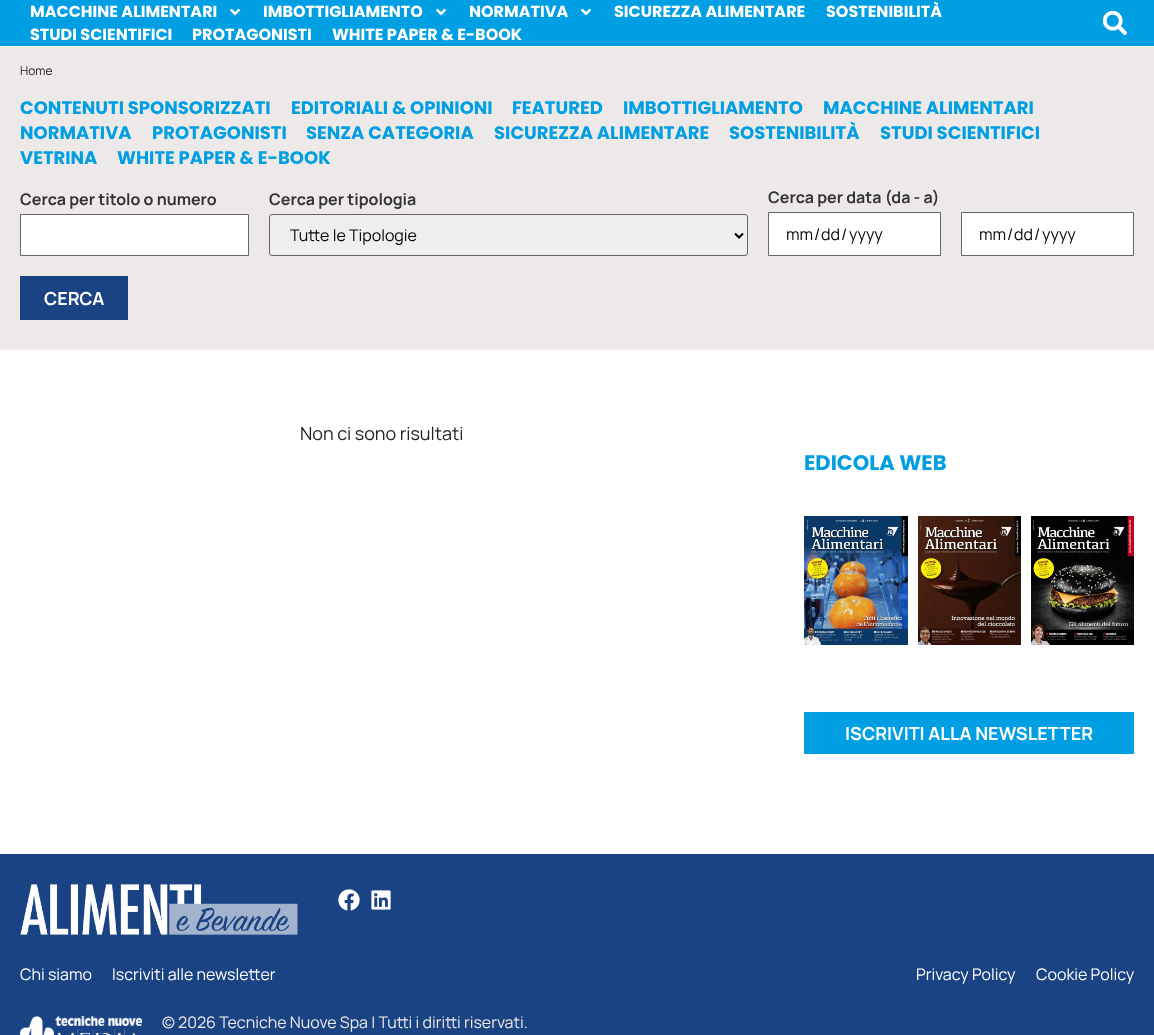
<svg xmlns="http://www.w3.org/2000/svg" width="1154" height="1035">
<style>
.a{font:bold 16px Poppins;fill:#fff}
.b{font:12px Manrope;fill:#222}
.c{font:bold 18px Poppins;fill:#009fe3}
.d{font:bold 16px Manrope;fill:#333}
.e{font:16px Manrope;fill:#000}
.f{font:bold 18px Manrope;fill:#fff}
.g{font:18px Manrope;fill:#222}
.h{font:bold 21px Poppins;fill:#009fe3}
.i{font:16px Manrope;fill:#fff}
.j{font:16px Manrope;fill:#ede9e8}
</style>
<rect width="100%" height="100%" fill="#fff"/>
<path fill="#009fe3" d="M0 0h1154v46H0z"/>
<image href="1.png" x="230" y="8" width="10" height="8"/>
<image href="1.png" x="436" y="8" width="10" height="8"/>
<image href="1.png" x="581" y="8" width="10" height="8"/>
<image href="2.png" x="1103" y="11" width="24" height="25"/>
<path fill="#ede9e8" d="M0 47h1154v303H0z"/>
<path fill="#fff" stroke="#666" d="M20.5 214.5h228v41H20.5z"/>
<rect fill="#efefef" stroke="#666" x="269.5" y="214.5" width="478" height="41" rx="2.5"/>
<path fill="none" stroke="#000" stroke-width="2" d="M735 233.5l4 4l4-4"/>
<path fill="#fff" stroke="#666" d="M768.5 212.5h172v43H768.5z"/>
<path fill="#fff" stroke="#666" d="M961.5 212.5h172v43H961.5z"/>
<path fill="#194383" d="M20 276h108v44H20z"/>
<image href="3.png" x="804" y="516" width="104" height="129"/>
<image href="4.png" x="918" y="516" width="103" height="129"/>
<image href="5.png" x="1031" y="516" width="103" height="129"/>
<path fill="#009fe3" d="M804 712h330v42H804z"/>
<path fill="#194383" d="M0 854h1154v181H0z"/>
<image href="6.png" x="20" y="884" width="278" height="51"/>
<image href="7.png" x="338" y="889" width="22" height="22"/>
<image href="8.png" x="371" y="890" width="20" height="20"/>
<image href="9.png" x="20" y="1016" width="122" height="19"/>
<text class="a" x="30" y="17">MACCHINE ALIMENTARI</text>
<text class="a" x="263" y="17">IMBOTTIGLIAMENTO</text>
<text class="a" x="469" y="17">NORMATIVA</text>
<text class="a" x="614" y="17">SICUREZZA ALIMENTARE</text>
<text class="a" x="826" y="17">SOSTENIBILITÀ</text>
<text class="a" x="30" y="40">STUDI SCIENTIFICI</text>
<text class="a" x="192" y="40">PROTAGONISTI</text>
<text class="a" x="332" y="40">WHITE PAPER &amp; E-BOOK</text>
<text class="b" x="20" y="75">Home</text>
<text class="c" x="20" y="114">CONTENUTI SPONSORIZZATI</text>
<text class="c" x="291" y="114">EDITORIALI &amp; OPINIONI</text>
<text class="c" x="512" y="114">FEATURED</text>
<text class="c" x="623" y="114">IMBOTTIGLIAMENTO</text>
<text class="c" x="823" y="114">MACCHINE ALIMENTARI</text>
<text class="c" x="20" y="139">NORMATIVA</text>
<text class="c" x="152" y="139">PROTAGONISTI</text>
<text class="c" x="306" y="139">SENZA CATEGORIA</text>
<text class="c" x="494" y="139">SICUREZZA ALIMENTARE</text>
<text class="c" x="729" y="139">SOSTENIBILITÀ</text>
<text class="c" x="880" y="139">STUDI SCIENTIFICI</text>
<text class="c" x="20" y="164">VETRINA</text>
<text class="c" x="117" y="164">WHITE PAPER &amp; E-BOOK</text>
<text class="d" x="20" y="205">Cerca per titolo o numero</text>
<text class="d" x="269" y="205">Cerca per tipologia</text>
<text class="e" x="290" y="241">Tutte le Tipologie</text>
<text class="d" x="768" y="203">Cerca per data (da - a)</text>
<text class="e" x="786" y="240">mm</text>
<text class="e" x="814" y="240">/</text>
<text class="e" x="821" y="240">dd</text>
<text class="e" x="841" y="240">/</text>
<text class="e" x="849" y="240">yyyy</text>
<text class="e" x="979" y="240">mm</text>
<text class="e" x="1007" y="240">/</text>
<text class="e" x="1014" y="240">dd</text>
<text class="e" x="1034" y="240">/</text>
<text class="e" x="1042" y="240">yyyy</text>
<text class="f" x="44" y="305">CERCA</text>
<text class="g" x="300" y="440">Non ci sono risultati</text>
<text class="h" x="804" y="470">EDICOLA WEB</text>
<text class="f" x="845" y="740">ISCRIVITI ALLA NEWSLETTER</text>
<text class="i" x="20" y="980">Chi siamo</text>
<text class="i" x="112" y="980">Iscriviti alle newsletter</text>
<text class="i" x="916" y="980">Privacy Policy</text>
<text class="i" x="1036" y="980">Cookie Policy</text>
<text class="j" x="162" y="1028">© 2026 Tecniche Nuove Spa | Tutti i diritti riservati.</text>
</svg>
